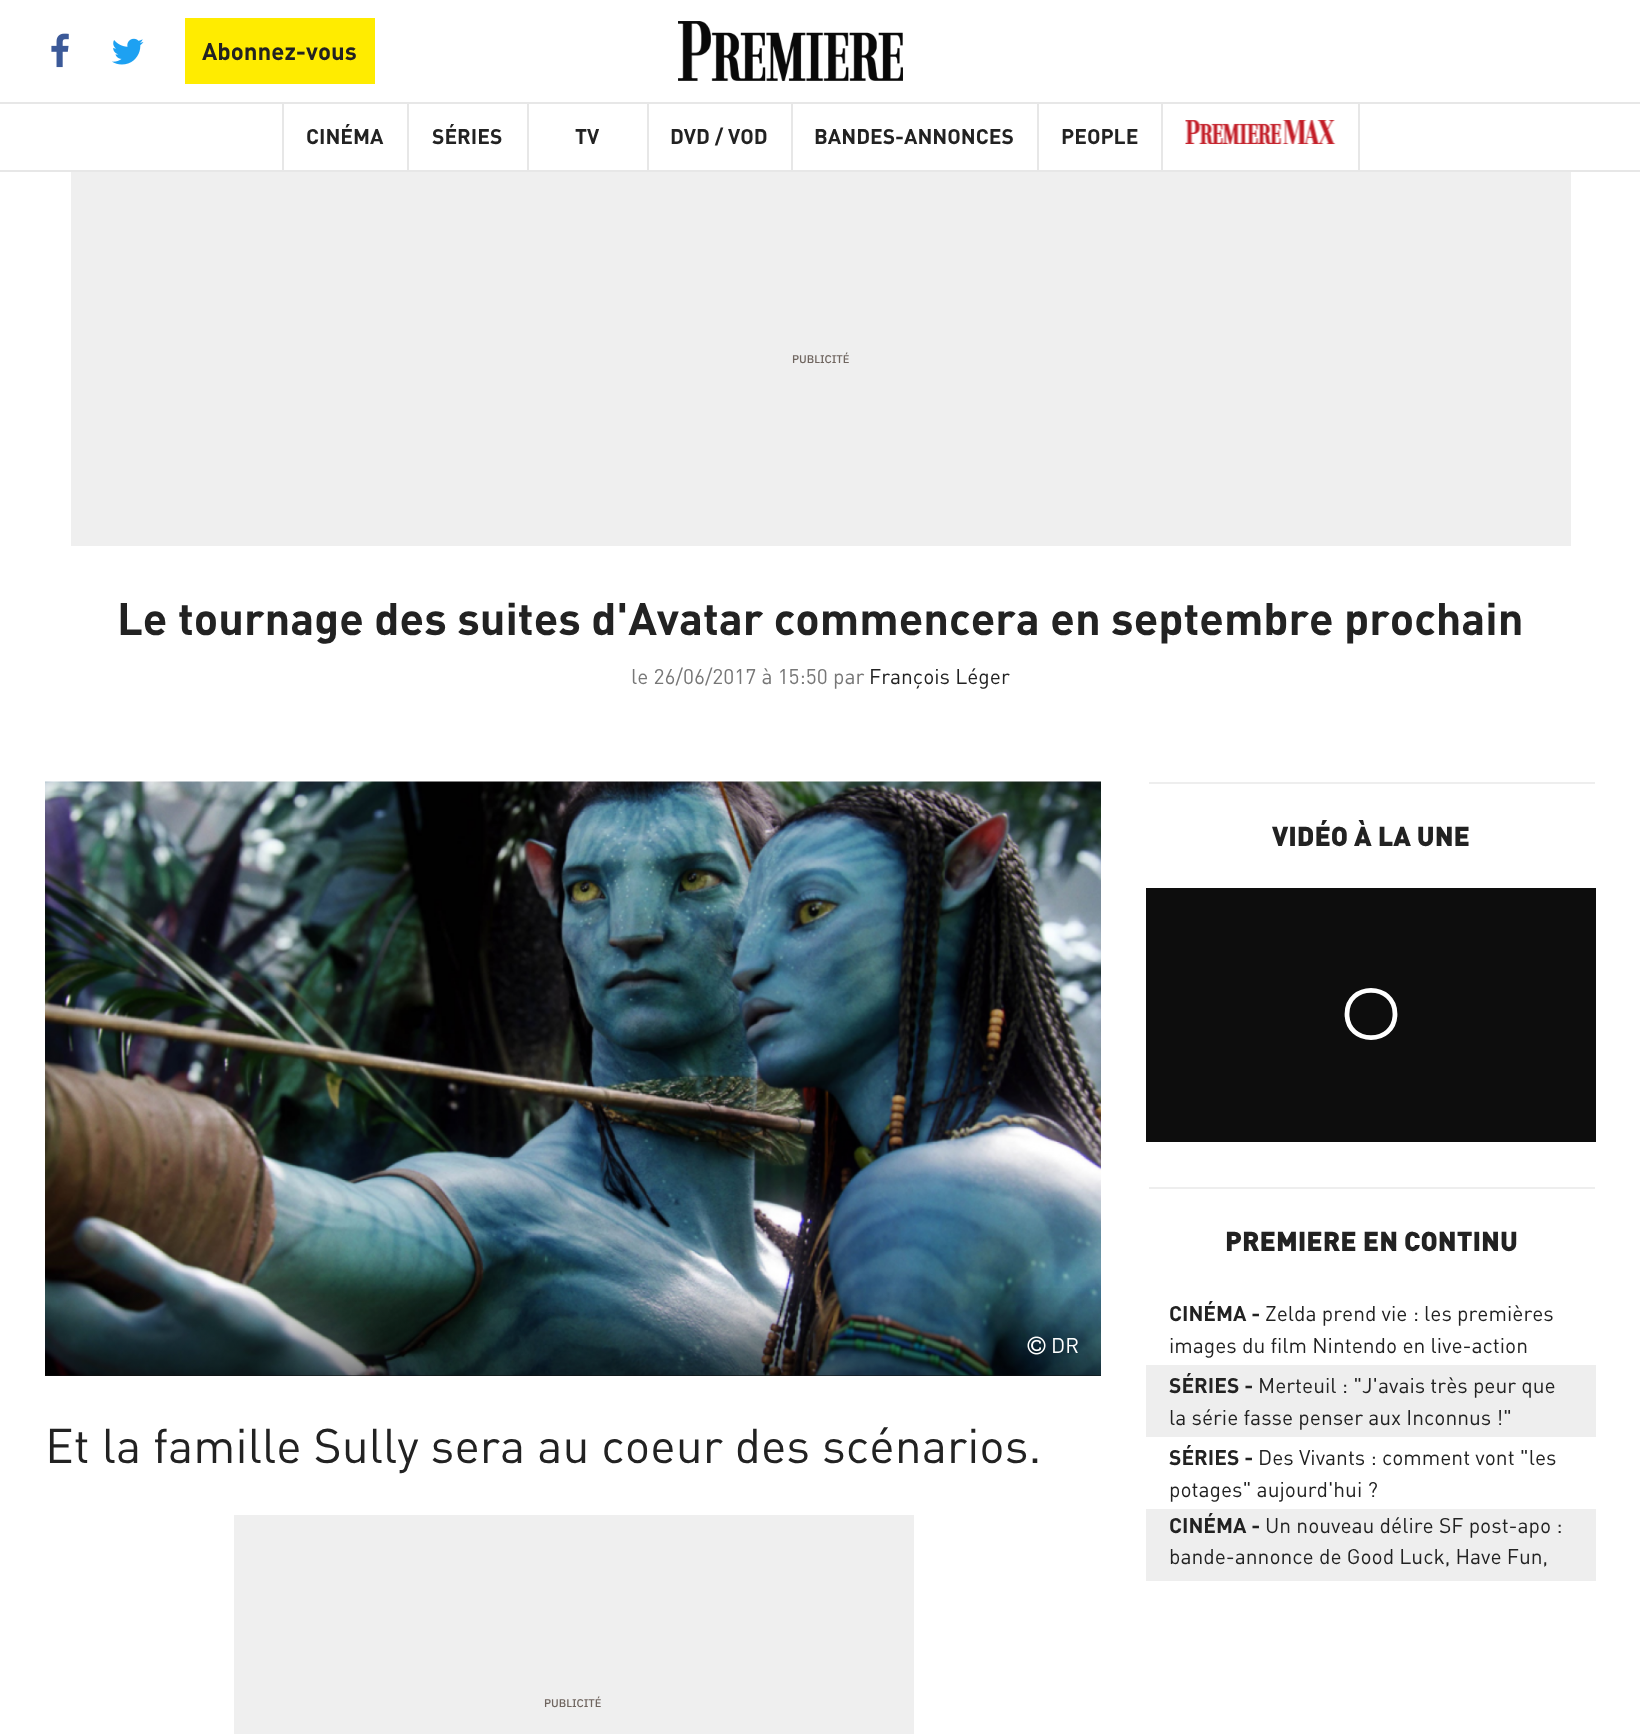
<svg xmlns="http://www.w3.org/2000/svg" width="1640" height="1734">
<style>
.a{font:bold 24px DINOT;fill:#222}
.b{font:bold 21px DINOT;fill:#222}
.c{font:500 11.25px IBM Plex Sans;fill:#6f655f}
.d{font:bold 45px DINOT;fill:#222}
.e{font:21px DINOT;fill:#777}
.f{font:21px DINOT;fill:#222}
.g{font:21px DINOT;fill:#fff}
.h{font:48px DINOT;fill:#222}
.i{font:900 27px DINOT;fill:#222}
</style>
<defs>
<linearGradient id="g1" gradientUnits="userSpaceOnUse" x1="573" y1="1284" x2="573" y2="1376"><stop offset="0" stop-color="#000" stop-opacity="0"/><stop offset="1" stop-color="#000" stop-opacity="0.5"/></linearGradient>
</defs>
<rect width="100%" height="100%" fill="#fff"/>
<image href="1.png" x="51" y="33" width="18" height="35"/>
<image href="2.png" x="112" y="38" width="32" height="27"/>
<path fill="#ffec00" d="M185 18h190v66H185z"/>
<image href="3.png" x="678" y="21" width="225" height="60"/>
<path fill="#e7e7e7" d="M0 102h1640v2H0z"/>
<path fill="#e7e7e7" d="M0 170h1640v2H0z"/>
<path fill="#e7e7e7" d="M407 104h2v66H407z"/>
<path fill="#e7e7e7" d="M282 104h2v66H282z"/>
<path fill="#e7e7e7" d="M527 104h2v66H527z"/>
<path fill="#e7e7e7" d="M647 104h2v66H647z"/>
<path fill="#e7e7e7" d="M791 104h2v66H791z"/>
<path fill="#e7e7e7" d="M1037 104h2v66H1037z"/>
<path fill="#e7e7e7" d="M1161 104h2v66H1161z"/>
<path fill="#e7e7e7" d="M1358 104h2v66H1358z"/>
<image href="4.png" x="1185" y="120" width="151" height="24"/>
<path fill="#efefef" d="M71 172h1500v374H71z"/>
<path fill="#222" d="M45 1375h1056v1H45z"/>
<image href="5.png" x="45" y="781" width="1056" height="595"/>
<path fill="url(#g1)" d="M45 1288h1056v88H45z"/>
<image href="6.png" x="1027" y="1336" width="19" height="19"/>
<path fill="#efefef" d="M234 1515h680v219H234z"/>
<path fill="#eee" d="M1149 782h446v2H1149z"/>
<path fill="#0d0d0d" d="M1146 888h450v254H1146z"/>
<path fill="none" stroke="#fff" stroke-width="4.8" d="M1347 1014c0-31.5 48-31.5 48 0c0 31.5-48 31.5-48 0"/>
<path fill="#eee" d="M1149 1187h446v2H1149z"/>
<path fill="#eee" d="M1146 1365h450v72H1146z"/>
<path fill="#eee" d="M1146 1509h450v72H1146z"/>
<text class="a" x="202" y="60">Abonnez-vous</text>
<text class="b" x="306" y="144">CINÉMA</text>
<text class="b" x="432" y="144">SÉRIES</text>
<text class="b" x="575" y="144">TV</text>
<text class="b" x="670" y="144">DVD / VOD</text>
<text class="b" x="814" y="144">BANDES-ANNONCES</text>
<text class="b" x="1061" y="144">PEOPLE</text>
<text class="c" x="792" y="363">PUBLICITÉ</text>
<text class="d" x="117" y="635">Le tournage des suites d'Avatar commencera en septembre prochain</text>
<text class="e" x="631" y="684">le 26/06/2017 à 15:50 par</text>
<text class="f" x="869" y="684">François Léger</text>
<text class="g" x="1051" y="1353">DR</text>
<text class="h" x="45" y="1463">Et la famille Sully sera au coeur des scénarios.</text>
<text class="c" x="544" y="1707">PUBLICITÉ</text>
<text class="i" x="1272" y="846">VIDÉO À LA UNE</text>
<text class="i" x="1225" y="1251">PREMIERE EN CONTINU</text>
<text class="b" x="1169" y="1321">CINÉMA -</text>
<text class="f" x="1265" y="1321">Zelda prend vie : les premières</text>
<text class="f" x="1169" y="1353">images du film Nintendo en live-action</text>
<text class="b" x="1169" y="1393">SÉRIES -</text>
<text class="f" x="1258" y="1393">Merteuil : "J'avais très peur que</text>
<text class="f" x="1169" y="1425">la série fasse penser aux Inconnus !"</text>
<text class="b" x="1169" y="1465">SÉRIES -</text>
<text class="f" x="1258" y="1465">Des Vivants : comment vont "les</text>
<text class="f" x="1169" y="1497">potages" aujourd'hui ?</text>
<text class="b" x="1169" y="1533">CINÉMA -</text>
<text class="f" x="1265" y="1533">Un nouveau délire SF post-apo :</text>
<text class="f" x="1169" y="1564">bande-annonce de Good Luck, Have Fun,</text>
</svg>
